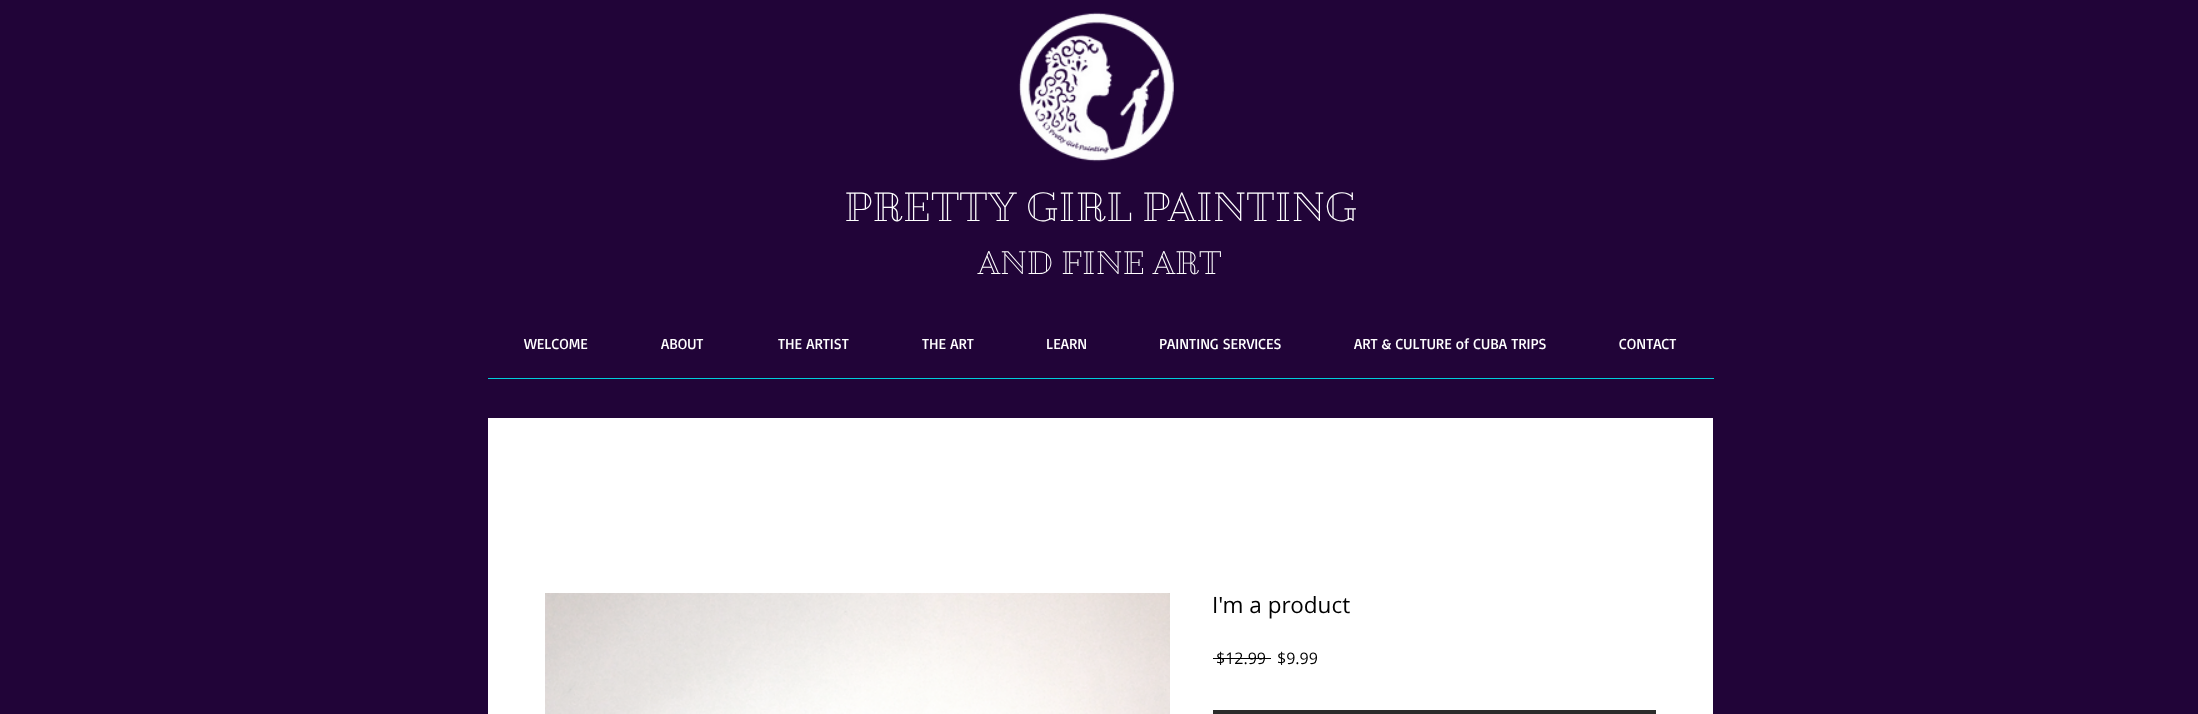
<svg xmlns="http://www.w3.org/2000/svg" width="2198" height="714">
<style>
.a{font:bold 37.5px 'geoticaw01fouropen';fill:#fff}
.b{font:bold 30px 'geoticaw01fouropen';fill:#fff}
.c{font:15px Basic;fill:#fff}
.d{font:22.5px Open Sans;fill:#000}
.e{font:16px Open Sans;fill:#000}
</style>
<rect width="100%" height="100%" fill="#210438"/>
<image href="1.png" x="1018" y="12" width="156" height="150"/>
<path fill="#00cedb" d="M488 378h1226v1H488z"/>
<path fill="#fff" d="M488 418h1225v296H488z"/>
<image href="2.png" x="545" y="593" width="625" height="121"/>
<path fill="#000" d="M1213 658h58v1H1213z"/>
<path fill="#2c2c2b" d="M1213 710h443v4H1213z"/>
<text class="a" x="844" y="221">PRETTY GIRL PAINTING</text>
<text class="b" x="978" y="274">AND FINE ART</text>
<text class="c" x="524" y="349">WELCOME</text>
<text class="c" x="661" y="349">ABOUT</text>
<text class="c" x="778" y="349">THE ARTIST</text>
<text class="c" x="922" y="349">THE ART</text>
<text class="c" x="1046" y="349">LEARN</text>
<text class="c" x="1159" y="349">PAINTING SERVICES</text>
<text class="c" x="1354" y="349">ART &amp; CULTURE of CUBA TRIPS</text>
<text class="c" x="1619" y="349">CONTACT</text>
<text class="d" x="1212" y="613">I'm a product</text>
<text class="e" x="1216" y="664">$12.99</text>
<text class="e" x="1277" y="664">$9.99</text>
</svg>
